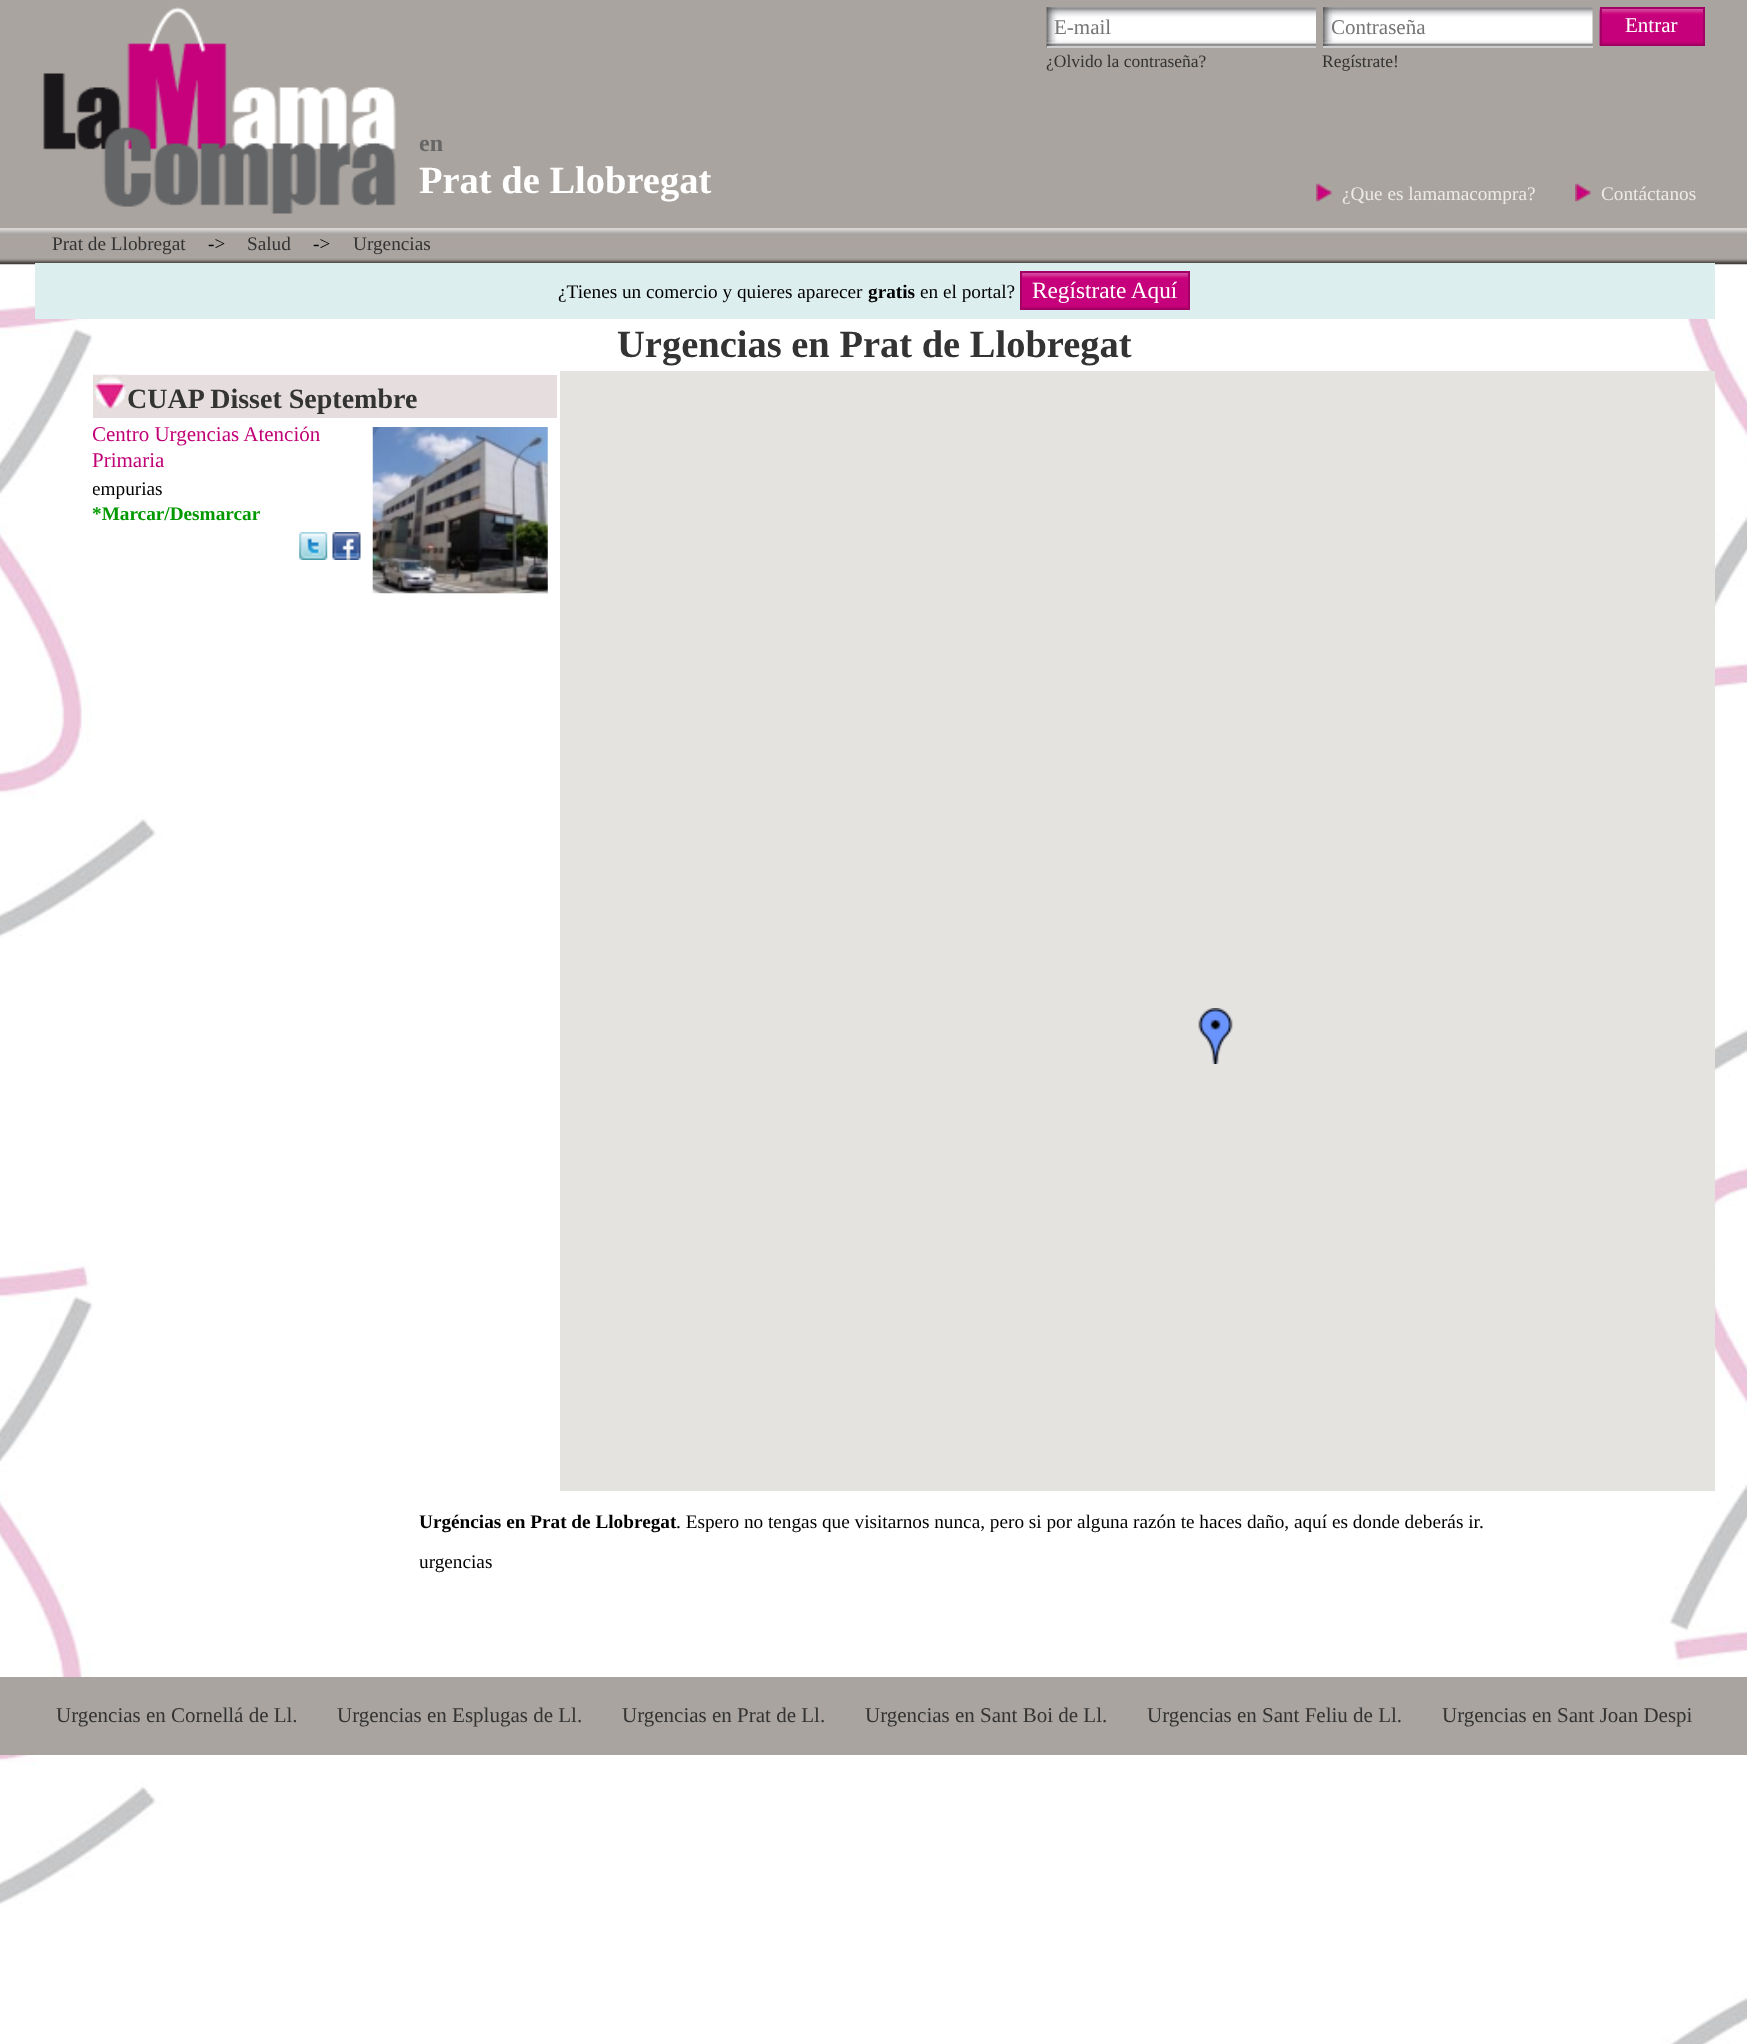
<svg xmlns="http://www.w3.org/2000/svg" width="1747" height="2044">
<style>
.a{font:21px Liberation Serif;fill:#757575}
.b{font:21px Liberation Serif;fill:#fff}
.c{font:17.5px Liberation Serif;fill:#333}
.d{font:bold 24px Liberation Serif;fill:#666}
.e{font:bold 38.5px Liberation Serif;fill:#fff}
.f{font:19.25px Liberation Serif;fill:#eceae8}
.g{font:19.25px Liberation Serif;fill:#333}
.h{font:19.25px Liberation Serif;fill:#000}
.i{font:bold 19.25px Liberation Serif;fill:#000}
.j{font:23.25px Liberation Serif;fill:#fff}
.k{font:bold 38.5px Liberation Serif;fill:#333}
.l{font:bold 28px Liberation Serif;fill:#333}
.m{font:21px Liberation Serif;fill:#c10076}
.n{font:bold 19.25px Liberation Serif;fill:#090}
.o{font:21px Liberation Serif;fill:#333}
</style>
<defs>
<clipPath id="clip1"><path d="M1332 16h252v26H1332z"/></clipPath>
<clipPath id="clip2"><path d="M93 375h464v218H93z"/></clipPath>
</defs>
<rect width="100%" height="100%" fill="#fff"/>
<image href="1.png" x="0" y="264" width="1747" height="1780"/>
<path fill="#a9a49f" d="M0 0h1747v228H0z"/>
<image href="2.png" x="43" y="6" width="353" height="208"/>
<image href="3.png" x="1046" y="7" width="270" height="41"/>
<path fill="#ccc" d="M1047 46h269v2H1047z"/>
<image href="4.png" x="1323" y="7" width="270" height="39"/>
<path fill="#ccc" d="M1323 46h270v2H1323z"/>
<image href="5.png" x="1599" y="8" width="104" height="38"/>
<path fill="none" stroke="#a20064" stroke-width="2" d="M1601 8h103v37H1601z"/>
<image href="6.png" x="1316" y="183" width="16" height="19"/>
<image href="6.png" x="1575" y="183" width="16" height="19"/>
<image href="7.png" x="0" y="228" width="1747" height="37"/>
<path fill="#dee" d="M35 263h1680v56H35z"/>
<image href="8.png" x="1022" y="273" width="166" height="35"/>
<path fill="none" stroke="#a20064" stroke-width="2" d="M1021 272h168v37H1021z"/>
<path fill="#e6dede" d="M93 375h464v43H93z"/>
<image href="9.png" x="93" y="374" width="35" height="36"/>
<image href="10.png" x="299" y="532" width="29" height="28"/>
<image href="11.png" x="332" y="532" width="29" height="28"/>
<image href="12.png" x="372" y="427" width="176" height="167"/>
<path fill="#e5e3df" d="M560 371h1155v1120H560z"/>
<image href="13.png" x="1198" y="1008" width="35" height="56"/>
<path fill="#a9a49f" d="M0 1677h1747v78H0z"/>
<text class="a" x="1054" y="34">E-mail</text>
<g clip-path="url(#clip1)">
<text class="a" x="1331" y="34">Contraseña</text>
</g>
<text class="b" x="1625" y="32">Entrar</text>
<text class="c" x="1046" y="67">¿Olvido la contraseña?</text>
<text class="c" x="1322" y="67">Regístrate!</text>
<text class="d" x="419" y="151">en</text>
<text class="e" x="419" y="193">Prat de Llobregat</text>
<text class="f" x="1342" y="200">¿Que es lamamacompra?</text>
<text class="f" x="1601" y="200">Contáctanos</text>
<text class="g" x="52" y="250">Prat de Llobregat</text>
<text class="h" x="208" y="250">-&gt;</text>
<text class="g" x="247" y="250">Salud</text>
<text class="h" x="313" y="250">-&gt;</text>
<text class="g" x="353" y="250">Urgencias</text>
<text class="h" x="558" y="298">¿Tienes un comercio y quieres aparecer</text>
<text class="i" x="868" y="298">gratis</text>
<text class="h" x="920" y="298">en el portal?</text>
<text class="j" x="1032" y="298">Regístrate Aquí</text>
<text class="k" x="617" y="357">Urgencias en Prat de Llobregat</text>
<text class="l" x="127" y="408">CUAP Disset Septembre</text>
<g clip-path="url(#clip2)">
<text class="m" x="92" y="441">Centro Urgencias Atención</text>
</g>
<text class="m" x="92" y="467">Primaria</text>
<g clip-path="url(#clip2)">
<text class="h" x="92" y="495">empurias</text>
</g>
<text class="n" x="92" y="520">*Marcar/Desmarcar</text>
<text class="i" x="419" y="1528">Urgéncias en Prat de Llobregat</text>
<text class="h" x="676" y="1528">. Espero no tengas que visitarnos nunca, pero si por alguna razón te haces daño, aquí es donde deberás ir.</text>
<text class="h" x="419" y="1568">urgencias</text>
<text class="o" x="56" y="1722">Urgencias en Cornellá de Ll.</text>
<text class="o" x="337" y="1722">Urgencias en Esplugas de Ll.</text>
<text class="o" x="622" y="1722">Urgencias en Prat de Ll.</text>
<text class="o" x="865" y="1722">Urgencias en Sant Boi de Ll.</text>
<text class="o" x="1147" y="1722">Urgencias en Sant Feliu de Ll.</text>
<text class="o" x="1442" y="1722">Urgencias en Sant Joan Despi</text>
</svg>
